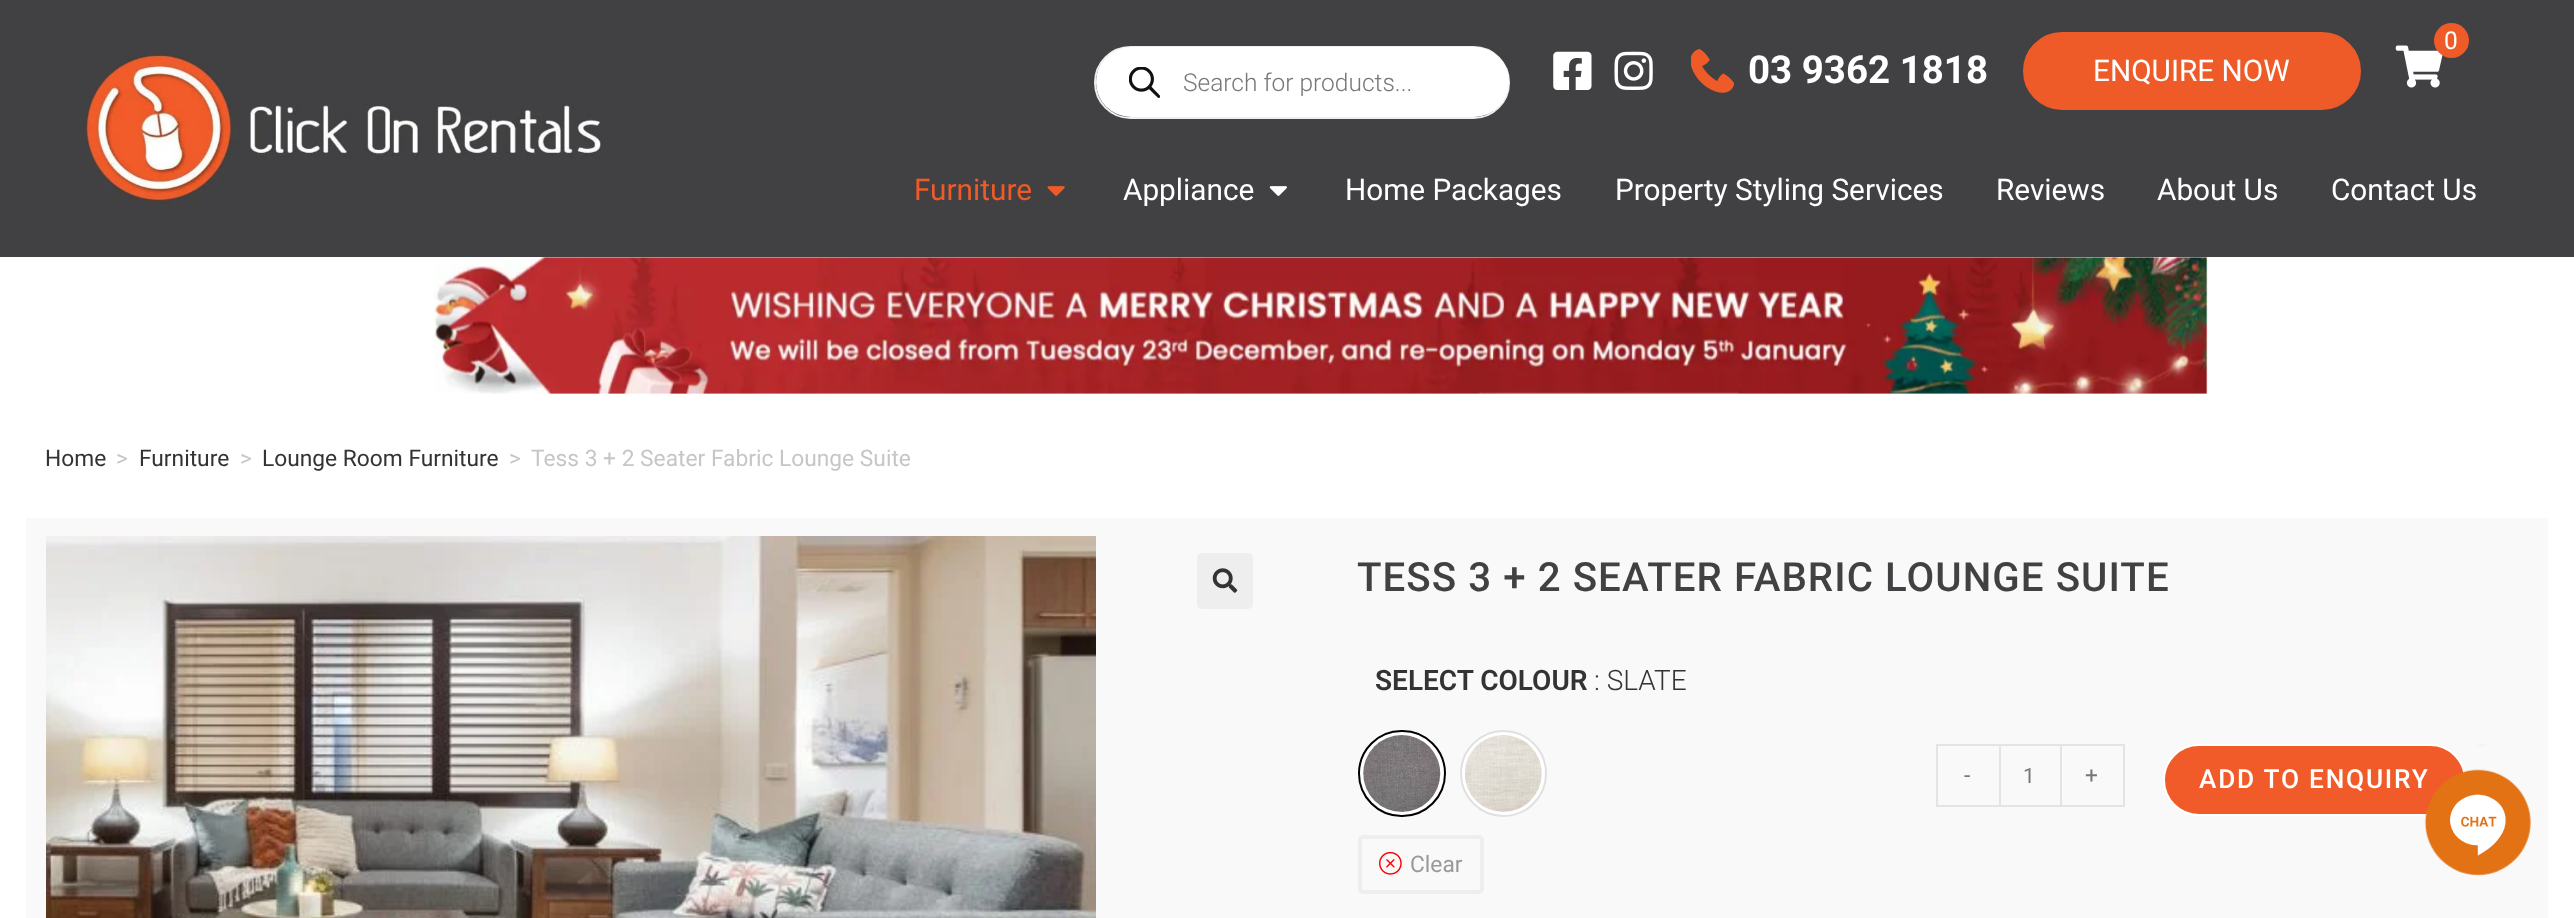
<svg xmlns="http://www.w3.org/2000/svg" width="2574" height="918">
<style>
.a{font:24.5px Roboto;fill:#fff}
.b{font:300 24.5px Roboto;fill:#777}
.c{font:bold 38.5px Roboto;fill:#fff}
.d{font:29.75px Roboto;fill:#fff}
.e{font:29.75px Roboto;fill:#ee5b28}
.f{font:22.75px Roboto;fill:#333}
.g{font:22.75px Roboto;fill:#c6c6c6}
.h{font:500 40.25px Roboto;letter-spacing:1.05px;fill:#414042}
.i{font:600 28px Roboto;fill:#333}
.j{font:300 28px Roboto;fill:#333}
.k{font:22.75px Roboto;fill:#999}
.l{font:22.75px Roboto;fill:#777}
.m{font:21px Roboto;fill:#777}
.n{font:500 26.25px Roboto;letter-spacing:1.75px;fill:#fff}
</style>
<rect width="100%" height="100%" fill="#fff"/>
<path fill="#414143" d="M0 0h2574v257H0z"/>
<image href="1.png" x="84" y="52" width="518" height="153"/>
<image href="2.png" x="2395" y="45" width="48" height="43"/>
<circle fill="#ee5b28" cx="2451.5" cy="40.5" r="17.5"/>
<rect fill="none" stroke="#eee" stroke-width="2" x="1095" y="47" width="414" height="71" rx="35.5"/>
<rect fill="#fff" x="1096" y="47" width="413" height="70" rx="35"/>
<image href="3.png" x="1129" y="67" width="31" height="31"/>
<image href="4.png" x="1553" y="51" width="39" height="39"/>
<image href="5.png" x="1614" y="51" width="39" height="39"/>
<image href="6.png" x="1691" y="49" width="43" height="44"/>
<rect fill="#ee5b28" stroke="#ee5b28" stroke-width="2" x="2024" y="33" width="336" height="76" rx="38"/>
<image href="7.png" x="1047" y="186" width="18" height="10"/>
<image href="8.png" x="1269" y="186" width="18" height="10"/>
<image href="9.png" x="434" y="257" width="1774" height="137"/>
<path fill="#f9f9f9" d="M26 518h2522v400H26z"/>
<image href="10.png" x="46" y="536" width="1050" height="382"/>
<rect fill="#eee" x="1197" y="553" width="56" height="56" rx="5"/>
<image href="11.png" x="1212" y="568" width="26" height="25"/>
<rect fill="#fff" stroke="#000" stroke-width="2" x="1359" y="731" width="86" height="85" rx="42.5"/>
<image href="12.png" x="1363" y="735" width="78" height="77"/>
<circle fill="#fff" cx="1503.5" cy="773.5" r="43.5"/>
<circle fill="none" stroke="#0000001f" stroke-width="2" cx="1503.5" cy="773.5" r="42.5"/>
<image href="13.png" x="1465" y="735" width="77" height="77"/>
<rect fill="none" stroke="#eee" stroke-width="4" x="1360" y="837" width="122" height="55" rx="3"/>
<image href="14.png" x="1379" y="851" width="23" height="24"/>
<path fill="#e4e4e4" d="M1936 744h63v2H1936z"/>
<path fill="#e4e4e4" d="M1936 805h63v2H1936z"/>
<path fill="#e4e4e4" d="M1936 744h2v63H1936z"/>
<path fill="none" stroke="#e4e4e4" stroke-width="2" d="M2000 745h61v61H2000z"/>
<path fill="#e4e4e4" d="M2062 744h63v2H2062z"/>
<path fill="#e4e4e4" d="M2123 744h2v63H2123z"/>
<path fill="#e4e4e4" d="M2062 805h63v2H2062z"/>
<rect fill="#f15b29" stroke="#fff" stroke-width="2" x="2164" y="745" width="301" height="70" rx="35"/>
<text class="a" x="2444" y="49">0</text>
<text class="b" x="1183" y="91">Search for products...</text>
<text class="c" x="1748" y="83">03 9362 1818</text>
<text class="d" x="2093" y="81">ENQUIRE NOW</text>
<text class="e" x="914" y="200">Furniture</text>
<text class="d" x="1123" y="200">Appliance</text>
<text class="d" x="1345" y="200">Home Packages</text>
<text class="d" x="1615" y="200">Property Styling Services</text>
<text class="d" x="1996" y="200">Reviews</text>
<text class="d" x="2157" y="200">About Us</text>
<text class="d" x="2331" y="200">Contact Us</text>
<text class="f" x="45" y="466">Home</text>
<text class="g" x="116" y="466">&gt;</text>
<text class="f" x="139" y="466">Furniture</text>
<text class="g" x="240" y="466">&gt;</text>
<text class="f" x="262" y="466">Lounge Room Furniture</text>
<text class="g" x="509" y="466">&gt;</text>
<text class="g" x="531" y="466">Tess 3 + 2 Seater Fabric Lounge Suite</text>
<text class="h" x="1357" y="591">TESS 3 + 2 SEATER FABRIC LOUNGE SUITE</text>
<text class="i" x="1375" y="690">SELECT COLOUR</text>
<text class="j" x="1594" y="690">: SLATE</text>
<text class="k" x="1410" y="872">Clear</text>
<text class="l" x="1964" y="783">-</text>
<text class="m" x="2023" y="783">1</text>
<text class="l" x="2085" y="783">+</text>
<text class="n" x="2199" y="788">ADD TO ENQUIRY</text>
<image href="15.png" x="2424" y="744" width="107" height="132"/>
</svg>
